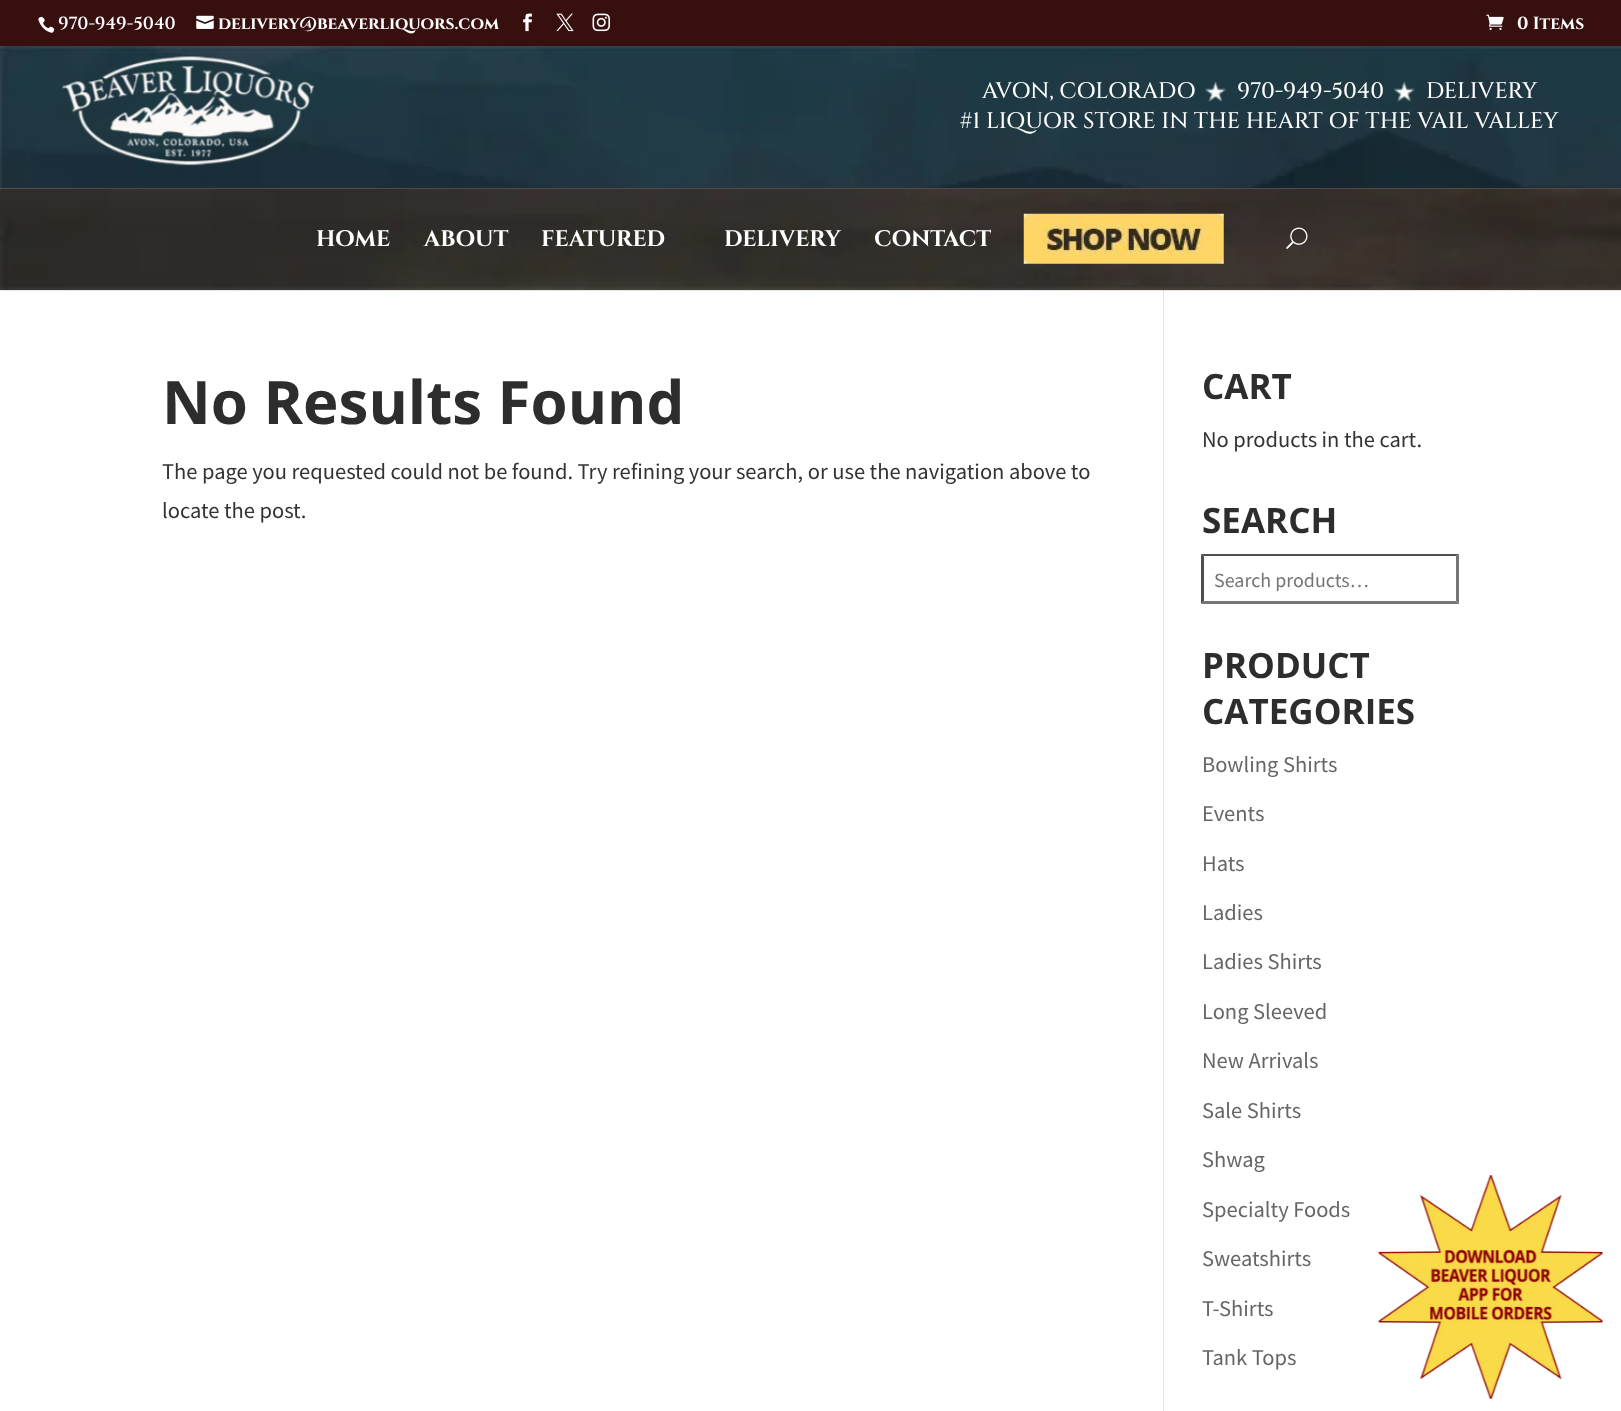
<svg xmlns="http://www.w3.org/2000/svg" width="1621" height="1411">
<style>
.a{font:600 17.5px Cinzel;fill:#fff}
.b{font:bold 17.5px Cinzel;fill:#fff}
.c{font:500 22.5px Cinzel;fill:#fff}
.d{font:bold 22.5px Cinzel;fill:#fff}
.e{font:bold 60px Open Sans;fill:#2d2d2d}
.f{font:22.5px Source Sans Pro;fill:#333}
.g{font:bold 35px Open Sans;fill:#2d2d2d}
.h{font:20px Source Sans Pro;fill:#757575}
.i{font:22.5px Source Sans Pro;fill:#666}
</style>
<rect width="100%" height="100%" fill="#fff"/>
<path fill="#e6e6e6" d="M0 290h1621v1H0z"/>
<path fill="#380f0f" d="M0 0h1621v46H0z"/>
<image href="1.png" x="38" y="16" width="17" height="17"/>
<image href="2.png" x="196" y="15" width="18" height="14"/>
<image href="3.png" x="523" y="13" width="9" height="19"/>
<image href="4.png" x="556" y="13" width="18" height="19"/>
<image href="5.png" x="592" y="13" width="18" height="19"/>
<image href="6.png" x="1486" y="14" width="18" height="16"/>
<image href="7.png" x="0" y="46" width="1621" height="142"/>
<image href="8.png" x="62" y="56" width="253" height="110"/>
<image href="9.png" x="1204" y="81" width="23" height="21"/>
<image href="10.png" x="1393" y="81" width="23" height="21"/>
<image href="11.png" x="0" y="189" width="1621" height="101"/>
<path fill="#514a46" d="M0 188h1621v1H0z"/>
<image href="12.png" x="1023" y="213" width="201" height="51"/>
<image href="13.png" x="1286" y="227" width="22" height="22"/>
<path fill="#e2e2e2" d="M1163 290h1v1121H1163z"/>
<path fill="#cbcbcb" d="M1163 290h1v1H1163z"/>
<path fill="#4f4f4f" d="M1201 554h258l-3 2h-252z"/>
<path fill="#767676" d="M1459 554v50l-3-3v-45z"/>
<path fill="#767676" d="M1459 604h-258l3-3h252z"/>
<path fill="#4f4f4f" d="M1201 604v-50l3 2v45z"/>
<image href="14.png" x="1378" y="1175" width="225" height="224"/>
<text class="a" x="58" y="29">970-949-5040</text>
<text class="b" x="218" y="29">delivery@beaverliquors.com</text>
<text class="b" x="1517" y="29">0 Items</text>
<text class="c" x="982" y="98">AVON, COLORADO</text>
<text class="c" x="1237" y="98">970-949-5040</text>
<text class="c" x="1426" y="98">DELIVERY</text>
<text class="c" x="960" y="128">#1 LIQUOR STORE IN THE HEART OF THE VAIL VALLEY</text>
<text class="d" x="316" y="246">HOME</text>
<text class="d" x="424" y="246">ABOUT</text>
<text class="d" x="541" y="246">FEATURED</text>
<text class="d" x="724" y="246">DELIVERY</text>
<text class="d" x="874" y="246">CONTACT</text>
<text class="e" x="162" y="424">No Results Found</text>
<text class="f" x="162" y="479">The page you requested could not be found. Try refining your search, or use the navigation above to</text>
<text class="f" x="162" y="518">locate the post.</text>
<text class="g" x="1202" y="399">CART</text>
<text class="f" x="1202" y="447">No products in the cart.</text>
<text class="g" x="1202" y="533">SEARCH</text>
<text class="h" x="1214" y="587">Search products…</text>
<text class="g" x="1202" y="678">PRODUCT</text>
<text class="g" x="1202" y="724">CATEGORIES</text>
<text class="i" x="1202" y="772">Bowling Shirts</text>
<text class="i" x="1202" y="821">Events</text>
<text class="i" x="1202" y="871">Hats</text>
<text class="i" x="1202" y="920">Ladies</text>
<text class="i" x="1202" y="969">Ladies Shirts</text>
<text class="i" x="1202" y="1019">Long Sleeved</text>
<text class="i" x="1202" y="1068">New Arrivals</text>
<text class="i" x="1202" y="1118">Sale Shirts</text>
<text class="i" x="1202" y="1167">Shwag</text>
<text class="i" x="1202" y="1217">Specialty Foods</text>
<text class="i" x="1202" y="1266">Sweatshirts</text>
<text class="i" x="1202" y="1316">T-Shirts</text>
<text class="i" x="1202" y="1365">Tank Tops</text>
</svg>
